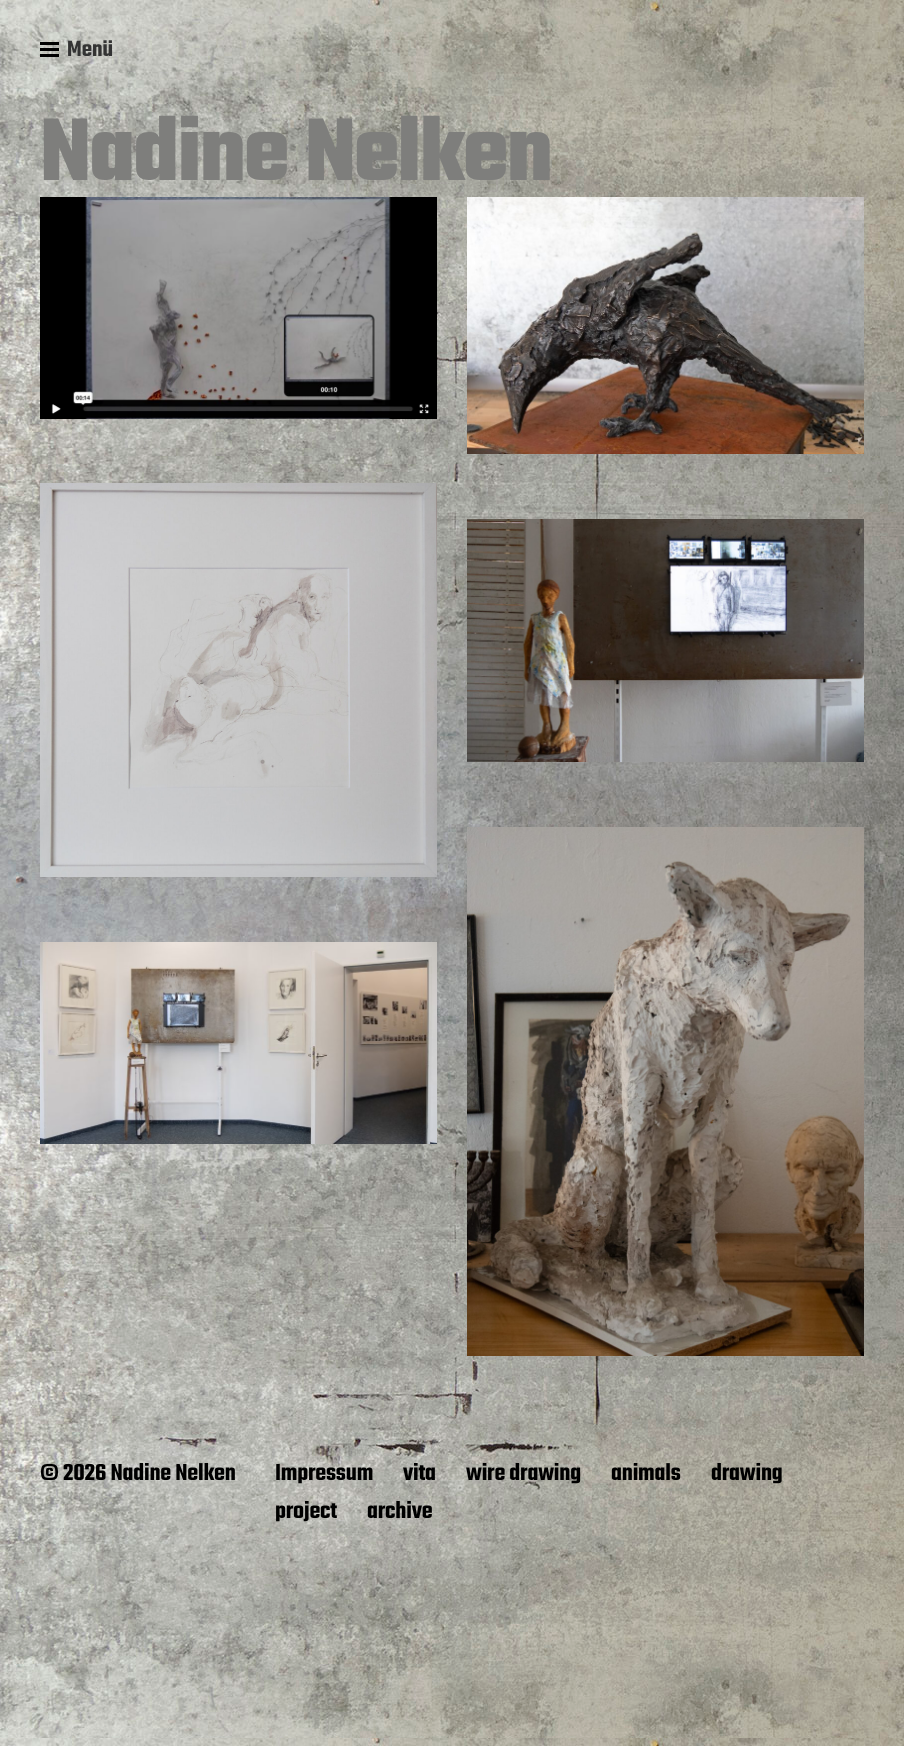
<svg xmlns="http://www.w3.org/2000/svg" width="904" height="1746">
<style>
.a{font:600 24px Teko;fill:#333}
.b{font:bold 96px Teko;letter-spacing:-1.9px;fill:#7e7e7c}
.c{font:600 25.25px Teko;letter-spacing:-0.2px;fill:#000}
</style>
<rect width="100%" height="100%" fill="#fff"/>
<image href="1.png" x="0" y="0" width="904" height="1746"/>
<path fill="#000" d="M40 42h19v3H40z"/>
<path fill="#000" d="M40 48h19v3H40z"/>
<path fill="#000" d="M40 54h19v3H40z"/>
<image href="2.png" x="40" y="197" width="397" height="222"/>
<image href="3.png" x="467" y="197" width="397" height="257"/>
<image href="4.png" x="40" y="483" width="397" height="394"/>
<image href="5.png" x="467" y="519" width="397" height="243"/>
<image href="6.png" x="40" y="942" width="397" height="202"/>
<image href="7.png" x="467" y="827" width="397" height="529"/>
<text class="a" x="67" y="56">Menü</text>
<text class="b" x="40" y="180">Nadine Nelken</text>
<text class="c" x="40" y="1480">© 2026 Nadine Nelken</text>
<text class="c" x="275" y="1480">Impressum</text>
<text class="c" x="403" y="1480">vita</text>
<text class="c" x="466" y="1480">wire drawing</text>
<text class="c" x="611" y="1480">animals</text>
<text class="c" x="711" y="1480">drawing</text>
<text class="c" x="275" y="1518">project</text>
<text class="c" x="367" y="1518">archive</text>
</svg>
